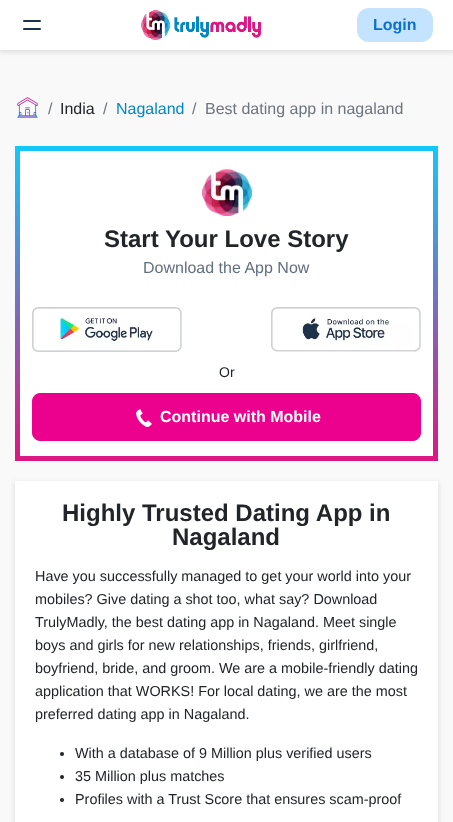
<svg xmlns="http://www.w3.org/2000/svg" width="453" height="822">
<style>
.a{font:bold 16px Liberation Sans;fill:#0b72cc}
.b{font:16px Liberation Sans;fill:#6c757d}
.c{font:16px Liberation Sans;fill:#212529}
.d{font:16px Liberation Sans;fill:#0086c9}
.e{font:bold 24px Liberation Sans;fill:#212529}
.f{font:16px Liberation Sans;fill:#616f80}
.g{font:14px Liberation Sans;fill:#212529}
.h{font:bold 16px Liberation Sans;fill:#fff}
.i{font:14.4px Liberation Sans;fill:#212529}
</style>
<defs>
<linearGradient id="g1" gradientUnits="userSpaceOnUse" x1="227" y1="461" x2="227" y2="146"><stop offset="0" stop-color="#dd1682"/><stop offset="1" stop-color="#12c9f8"/></linearGradient>
</defs>
<rect width="100%" height="100%" fill="#f9f9f9"/>
<path fill="#cccccc80" filter="blur(2px)" d="M-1 1h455v52H-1z"/>
<path fill="#fff" d="M0 0h453v50H0z"/>
<path fill="none" stroke="#1f314a" stroke-width="2" stroke-linecap="round" stroke-linejoin="round" d="M24 21h16m-16 8h16"/>
<image href="1.png" x="140" y="9" width="121" height="31"/>
<rect fill="#c3e3ff" x="357" y="8" width="76" height="34" rx="12"/>
<image href="2.png" x="17" y="97" width="21" height="21"/>
<path fill="url(#g1)" d="M15 146h423v315H15z"/>
<path fill="#fff" d="M20 151h413v305H20z"/>
<image href="3.png" x="202" y="168" width="50" height="48"/>
<image href="4.png" x="32" y="307" width="150" height="45"/>
<image href="5.png" x="271" y="307" width="150" height="45"/>
<rect fill="#ec008e" stroke="#ec008e" x="32.5" y="393.5" width="388" height="47" rx="7.5"/>
<image href="6.png" x="136" y="409" width="16" height="18"/>
<path fill="#cccccc80" filter="blur(2px)" d="M14 482h425v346H14z"/>
<path fill="#fff" d="M15 481h423v341H15z"/>
<circle fill="#212529" cx="62" cy="754" r="2"/>
<circle fill="#212529" cx="62" cy="777" r="2"/>
<circle fill="#212529" cx="62" cy="800" r="2"/>
<text class="a" x="373" y="30">Login</text>
<text class="b" x="48" y="114">/</text>
<text class="c" x="60" y="114">India</text>
<text class="b" x="103" y="114">/</text>
<text class="d" x="116" y="114">Nagaland</text>
<text class="b" x="192" y="114">/</text>
<text class="b" x="205" y="114">Best dating app in nagaland</text>
<text class="e" x="104" y="247">Start Your Love Story</text>
<text class="f" x="143" y="273">Download the App Now</text>
<text class="g" x="219" y="377">Or</text>
<text class="h" x="160" y="422">Continue with Mobile</text>
<text class="e" x="62" y="521">Highly Trusted Dating App in</text>
<text class="e" x="172" y="545">Nagaland</text>
<text class="i" x="35" y="581">Have you successfully managed to get your world into your</text>
<text class="i" x="35" y="604">mobiles? Give dating a shot too, what say? Download</text>
<text class="i" x="35" y="627">TrulyMadly, the best dating app in Nagaland. Meet single</text>
<text class="i" x="35" y="650">boys and girls for new relationships, friends, girlfriend,</text>
<text class="i" x="35" y="673">boyfriend, bride, and groom. We are a mobile-friendly dating</text>
<text class="i" x="35" y="696">application that WORKS! For local dating, we are the most</text>
<text class="i" x="35" y="719">preferred dating app in Nagaland.</text>
<text class="i" x="75" y="758">With a database of 9 Million plus verified users</text>
<text class="i" x="75" y="781">35 Million plus matches</text>
<text class="i" x="75" y="804">Profiles with a Trust Score that ensures scam-proof</text>
</svg>
